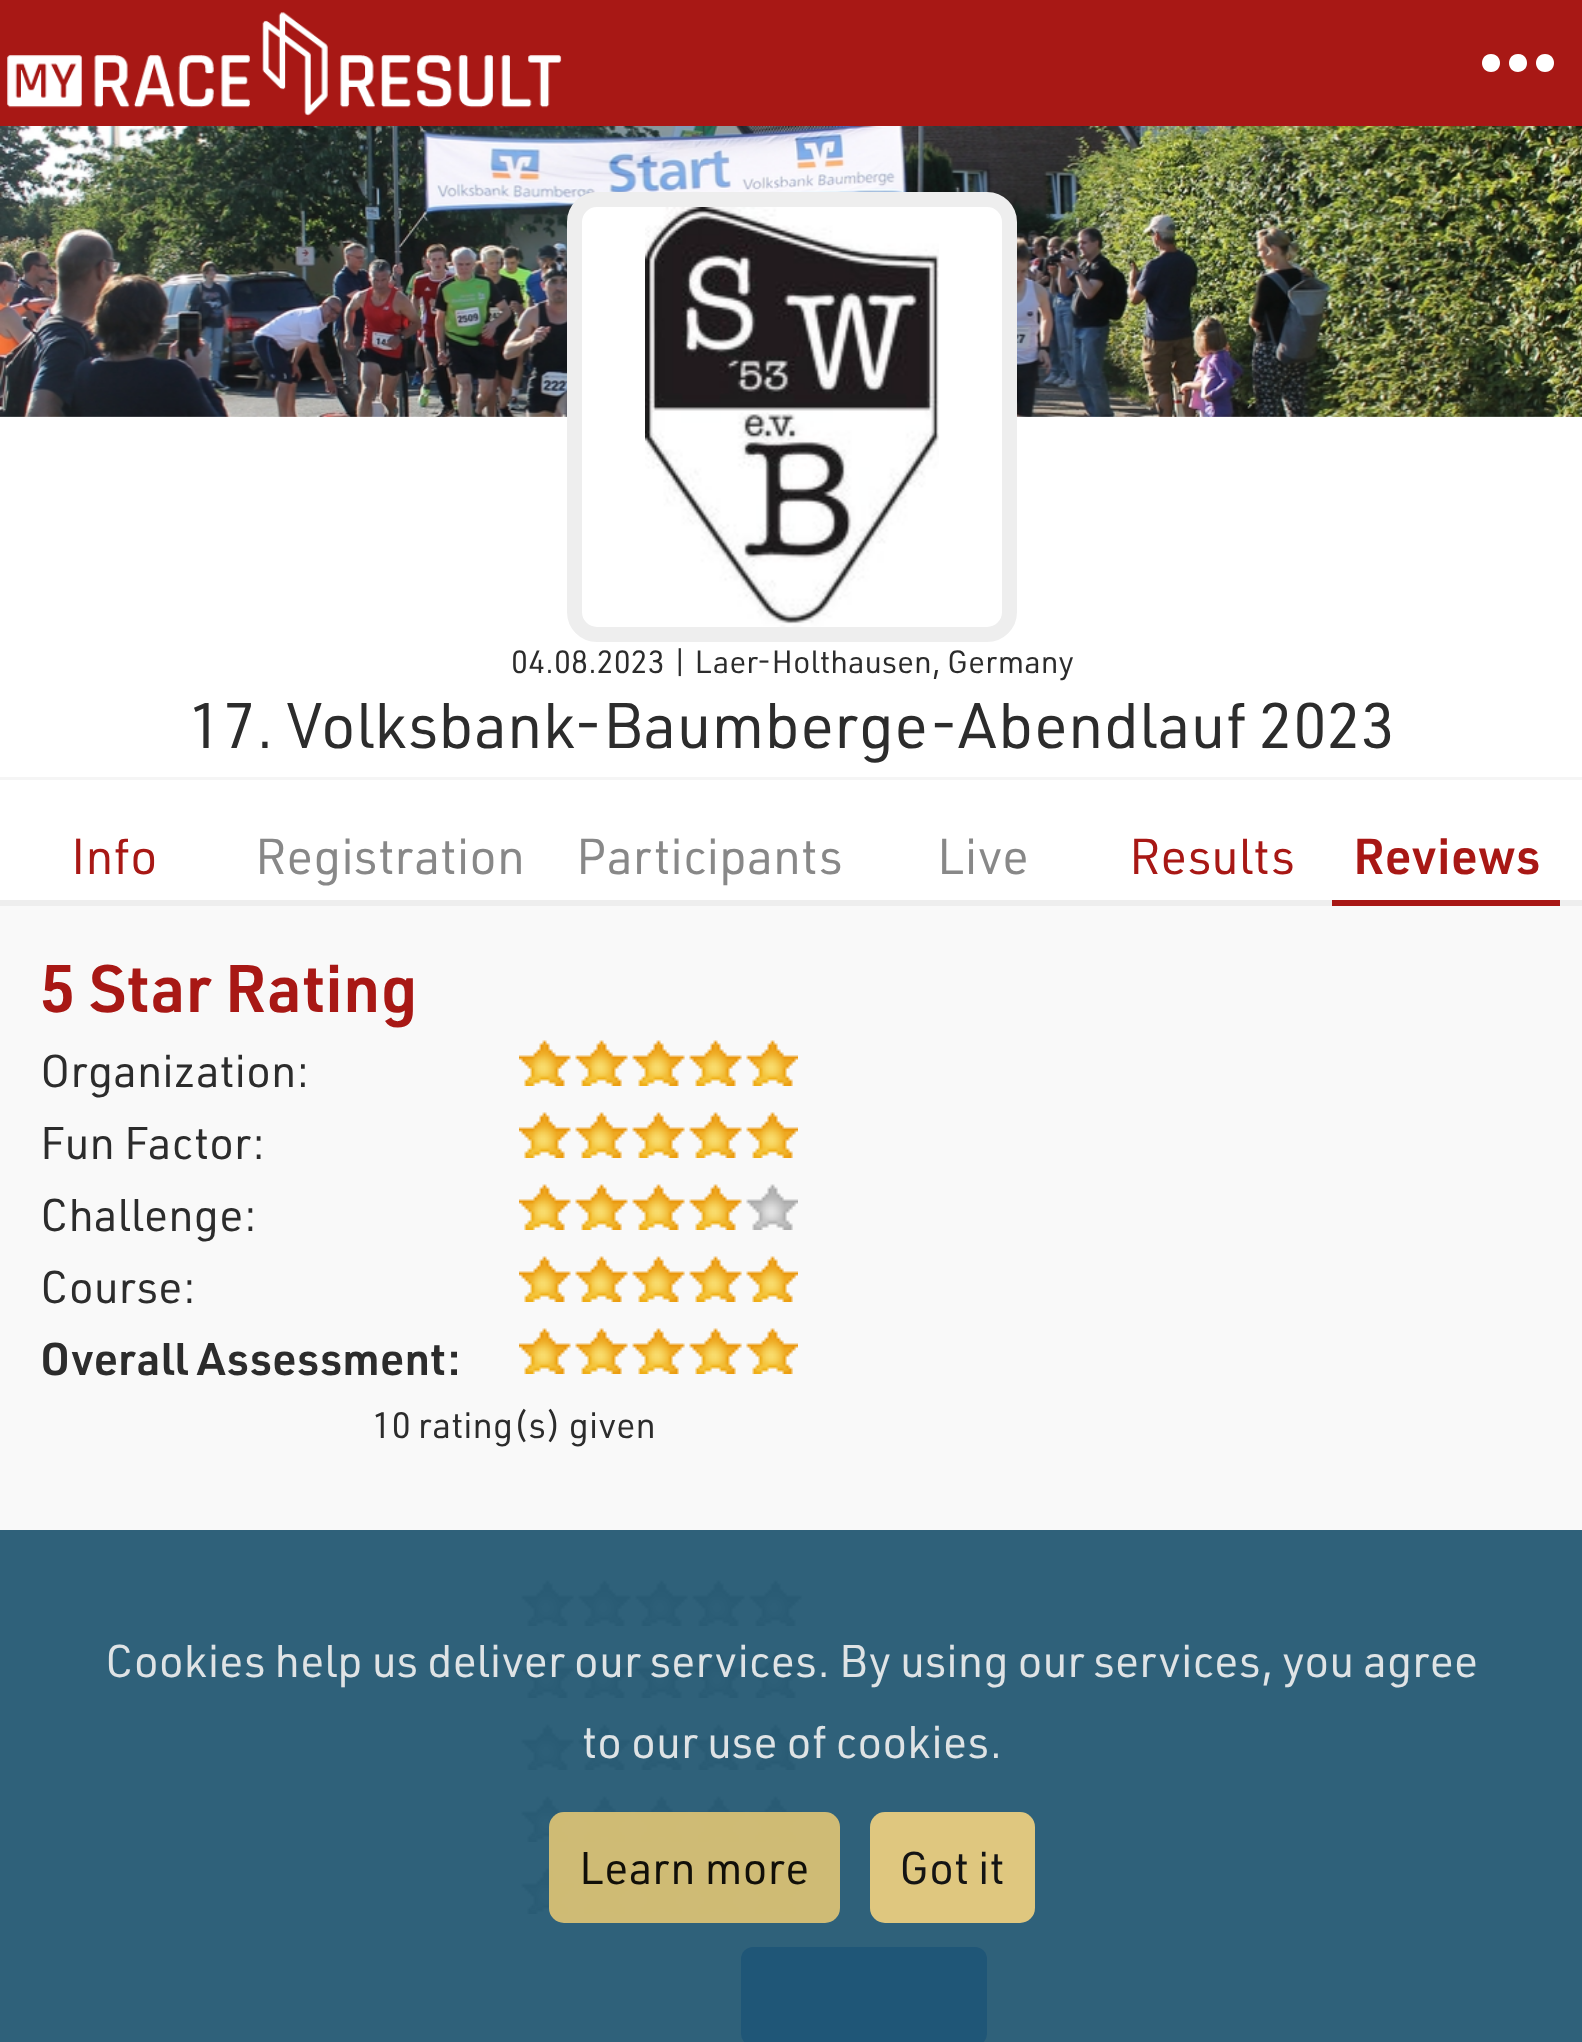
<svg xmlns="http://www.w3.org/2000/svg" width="1582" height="2042">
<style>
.a{font:31.5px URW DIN;fill:#2c2c2c}
.b{font:63px URW DIN;fill:#2c2c2c}
.c{font:49.5px URW DIN;fill:#a81815}
.d{font:49.5px URW DIN;fill:#888}
.e{font:600 49.5px URW DIN;fill:#a81815}
.f{font:600 65.75px URW DIN;fill:#a81815}
.g{font:45px URW DIN;fill:#2c2c2c}
.h{font:600 45px URW DIN;fill:#2c2c2c}
.i{font:36px URW DIN;fill:#2c2c2c}
.j{font:45px URW DIN;fill:#dfe3e5}
.k{font:45px URW DIN;fill:#110f09}
.l{font:45px URW DIN;fill:#141414}
</style>
<rect width="100%" height="100%" fill="#fff"/>
<path fill="#a81815" d="M0 0h1582v126H0z"/>
<image href="1.png" x="7" y="12" width="555" height="104"/>
<path fill="#fff" d="M1491 54c-12 0-12 18 0 18c12 0 12-18 0-18zm54 0c-12 0-12 18 0 18c12 0 12-18 0-18zm-27 0c-12 0-12 18 0 18c12 0 12-18 0-18z"/>
<image href="2.png" x="0" y="126" width="1582" height="291"/>
<path fill="#f5f5f5" d="M0 777h1582v3H0z"/>
<rect fill="#fff" stroke="#eee" stroke-width="15" x="574.5" y="199.5" width="435" height="435" rx="22.5"/>
<image href="3.png" x="645" y="207" width="294" height="420"/>
<path fill="#eee" d="M0 900h1582v6H0z"/>
<path fill="#a81815" d="M1332 900h228v6H1332z"/>
<path fill="#f9f9f9" d="M0 906h1582v1136H0z"/>
<image href="4.png" x="519" y="1040" width="279" height="46"/>
<image href="4.png" x="519" y="1112" width="279" height="46"/>
<image href="5.png" x="519" y="1184" width="279" height="46"/>
<image href="4.png" x="519" y="1256" width="279" height="46"/>
<image href="4.png" x="519" y="1328" width="279" height="46"/>
<image href="6.png" x="521" y="1580" width="53" height="46"/>
<image href="7.png" x="578" y="1580" width="54" height="46"/>
<image href="6.png" x="635" y="1580" width="53" height="46"/>
<image href="6.png" x="692" y="1580" width="53" height="46"/>
<image href="6.png" x="749" y="1580" width="53" height="46"/>
<image href="6.png" x="521" y="1652" width="53" height="46"/>
<image href="7.png" x="578" y="1652" width="54" height="46"/>
<image href="6.png" x="635" y="1652" width="53" height="46"/>
<image href="6.png" x="692" y="1652" width="53" height="46"/>
<image href="6.png" x="749" y="1652" width="53" height="46"/>
<image href="6.png" x="521" y="1724" width="53" height="46"/>
<image href="7.png" x="578" y="1724" width="54" height="46"/>
<image href="6.png" x="635" y="1724" width="53" height="46"/>
<image href="6.png" x="692" y="1724" width="53" height="46"/>
<image href="6.png" x="749" y="1724" width="53" height="46"/>
<image href="6.png" x="521" y="1796" width="53" height="46"/>
<image href="7.png" x="578" y="1796" width="54" height="46"/>
<image href="6.png" x="635" y="1796" width="53" height="46"/>
<image href="6.png" x="692" y="1796" width="53" height="46"/>
<image href="6.png" x="749" y="1796" width="53" height="46"/>
<image href="6.png" x="521" y="1868" width="53" height="46"/>
<image href="7.png" x="578" y="1868" width="54" height="46"/>
<image href="6.png" x="635" y="1868" width="53" height="46"/>
<image href="6.png" x="692" y="1868" width="53" height="46"/>
<image href="6.png" x="749" y="1868" width="53" height="46"/>
<rect fill="#376fd0" x="741" y="1947" width="246" height="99" rx="12"/>
<path fill="#1d546feb" d="M0 1530h1582v512H0z"/>
<rect fill="#ddc374eb" x="549" y="1812" width="291" height="111" rx="15"/>
<rect fill="#dfc77f" x="870" y="1812" width="165" height="111" rx="15"/>
<text class="a" x="511" y="673">04.08.2023 | Laer-Holthausen, Germany</text>
<text class="b" x="188" y="748">17. Volksbank-Baumberge-Abendlauf 2023</text>
<text class="c" x="71" y="874">Info</text>
<text class="d" x="255" y="874">Registration</text>
<text class="d" x="576" y="874">Participants</text>
<text class="d" x="937" y="874">Live</text>
<text class="c" x="1129" y="874">Results</text>
<text class="e" x="1353" y="874">Reviews</text>
<text class="f" x="40" y="1012">5 Star Rating</text>
<text class="g" x="40" y="1087">Organization:</text>
<text class="g" x="40" y="1159">Fun Factor:</text>
<text class="g" x="40" y="1231">Challenge:</text>
<text class="g" x="40" y="1303">Course:</text>
<text class="h" x="40" y="1375">Overall Assessment:</text>
<text class="i" x="372" y="1438">10 rating(s) given</text>
<text class="j" x="105" y="1677">Cookies help us deliver our services. By using our services, you agree</text>
<text class="j" x="582" y="1758">to our use of cookies.</text>
<text class="k" x="579" y="1884">Learn more</text>
<text class="l" x="899" y="1884">Got it</text>
</svg>
